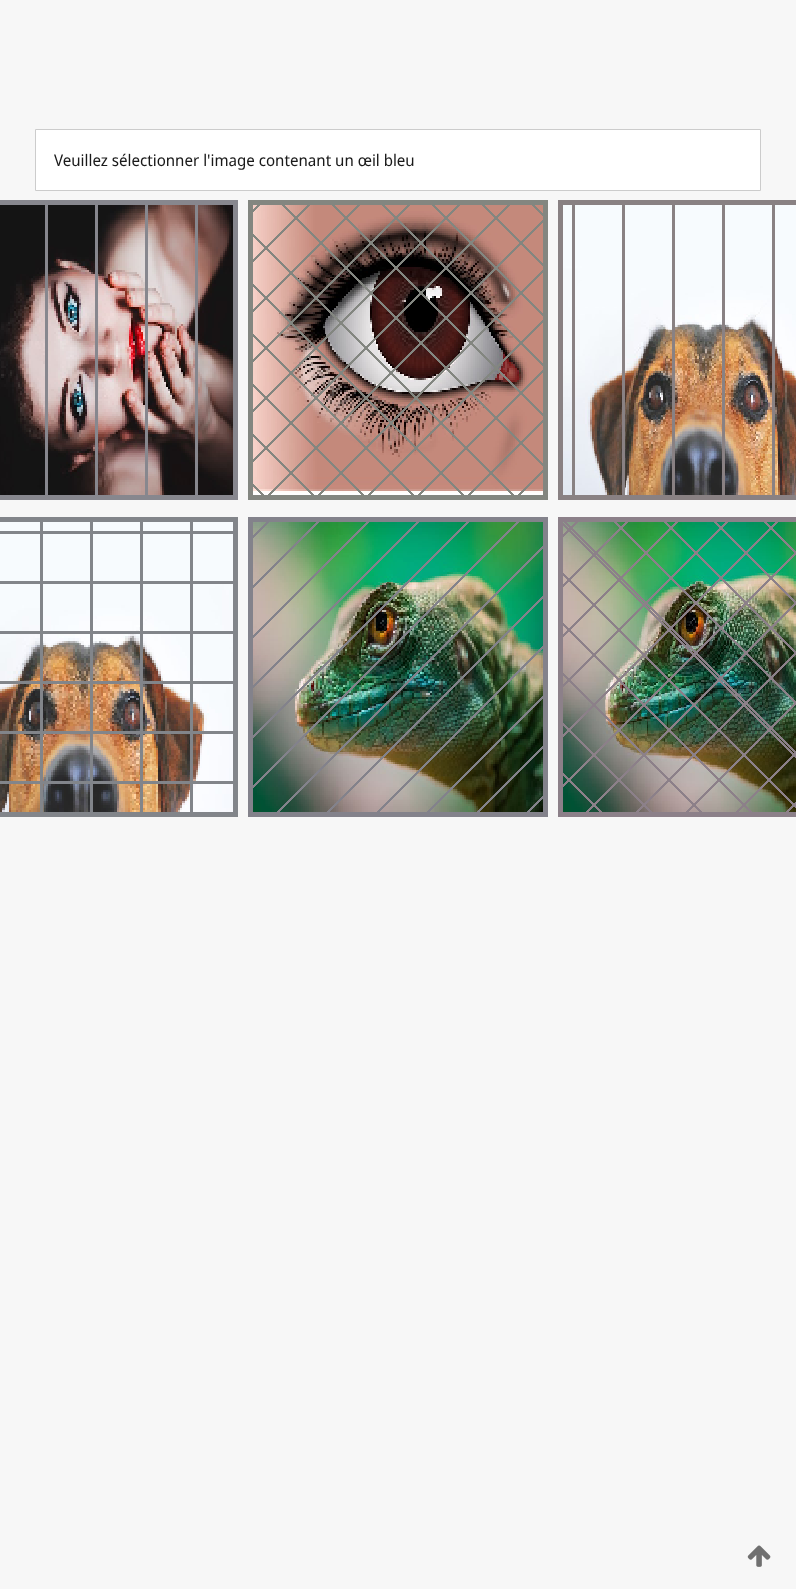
<svg xmlns="http://www.w3.org/2000/svg" width="796" height="1589">
<style>
.a{font:16px Noto Sans Display;fill:#1a1a1a}
</style>
<rect width="100%" height="100%" fill="#f7f7f7"/>
<path fill="#fff" stroke="#ccc" d="M35.5 129.5h725v61H35.5z"/>
<image href="1.png" x="0" y="200" width="238" height="300"/>
<image href="2.png" x="248" y="200" width="300" height="300"/>
<image href="3.png" x="558" y="200" width="238" height="300"/>
<image href="4.png" x="0" y="517" width="238" height="300"/>
<image href="5.png" x="248" y="517" width="300" height="300"/>
<image href="6.png" x="558" y="517" width="238" height="300"/>
<image href="7.png" x="747" y="1545" width="24" height="22"/>
<text class="a" x="54" y="166">Veuillez sélectionner l'image contenant un œil bleu</text>
</svg>
